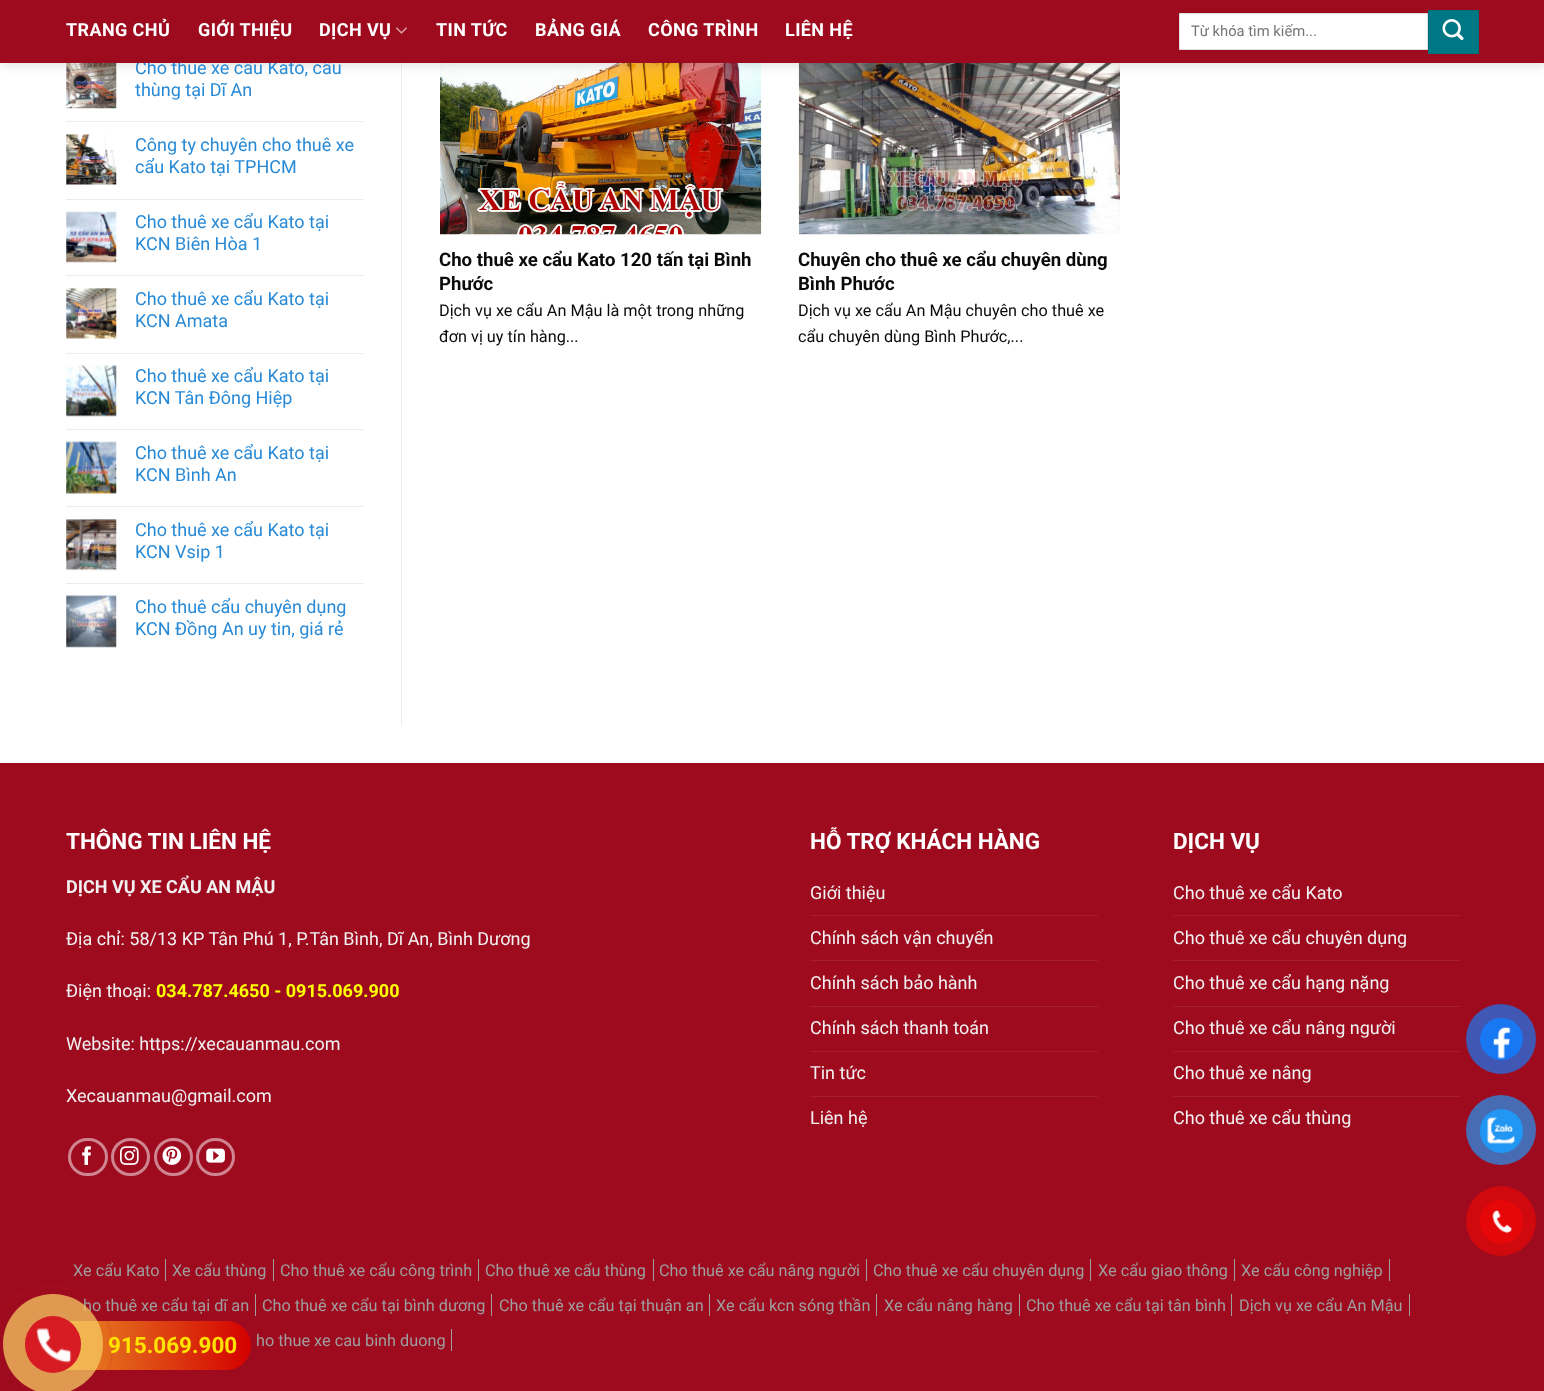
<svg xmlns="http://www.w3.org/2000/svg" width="1544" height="1391">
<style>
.a{font:18px Roboto;fill:#288ad6}
.b{font:14.75px Roboto;fill:#757575}
.c{font:bold 18px Roboto;letter-spacing:0.4px;fill:#fff}
.d{font:bold 18.6px Roboto;fill:#0a0a0a}
.e{font:16.25px Roboto;fill:#0a0a0a}
.f{font:bold 22.5px Roboto;fill:#fff}
.g{font:bold 18px Roboto;fill:#f1f1f1}
.h{font:18px Roboto;fill:#f1f1f1}
.i{font:bold 18px Roboto;fill:#ff0}
.j{font:16.25px Roboto;fill:#9e9e9e}
.k{font:bold 22.5px Roboto;fill:#ffe200}
</style>
<defs>
<linearGradient id="g1" gradientUnits="userSpaceOnUse" x1="64" y1="1346" x2="251" y2="1346"><stop offset="0" stop-color="#e88a25"/><stop offset="1" stop-color="#d40000"/></linearGradient>
</defs>
<rect width="100%" height="100%" fill="#fff"/>
<image href="3.png" x="66" y="63" width="51" height="46"/>
<path fill="#ececec" d="M401 63h1v662H401z"/>
<image href="11.png" x="440" y="63" width="322" height="172"/>
<image href="12.png" x="798" y="63" width="322" height="172"/>
<path fill="#00000026" filter="blur(6px)" d="M1 1h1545v63H1z"/>
<path fill="#ececec" d="M66 121h298v1H66z"/>
<image href="4.png" x="66" y="134" width="51" height="51"/>
<path fill="#ececec" d="M66 199h298v1H66z"/>
<image href="5.png" x="66" y="211" width="51" height="52"/>
<path fill="#ececec" d="M66 275h298v1H66z"/>
<image href="6.png" x="66" y="288" width="51" height="51"/>
<path fill="#ececec" d="M66 353h298v1H66z"/>
<image href="7.png" x="66" y="365" width="51" height="52"/>
<path fill="#ececec" d="M66 429h298v1H66z"/>
<image href="8.png" x="66" y="441" width="51" height="53"/>
<path fill="#ececec" d="M66 506h298v1H66z"/>
<image href="9.png" x="66" y="519" width="51" height="52"/>
<path fill="#ececec" d="M66 583h298v1H66z"/>
<image href="10.png" x="66" y="595" width="51" height="53"/>
<path fill="#9e0b1f" d="M0 763h1544v628H0z"/>
<rect fill="none" stroke="#cf858f" stroke-width="3" x="69.5" y="1139.5" width="37" height="35" rx="17.5"/>
<image href="13.png" x="82" y="1146" width="9" height="19"/>
<rect fill="none" stroke="#cf858f" stroke-width="3" x="112.5" y="1139.5" width="36" height="35" rx="17.5"/>
<image href="14.png" x="120" y="1146" width="19" height="19"/>
<rect fill="none" stroke="#cf858f" stroke-width="3" x="155.5" y="1139.5" width="36" height="35" rx="17.5"/>
<image href="15.png" x="162" y="1146" width="20" height="19"/>
<rect fill="none" stroke="#cf858f" stroke-width="3" x="197.5" y="1139.5" width="36" height="35" rx="17.5"/>
<image href="16.png" x="206" y="1148" width="19" height="15"/>
<path fill="#a61f31" d="M810 915h288v1H810z"/>
<path fill="#a61f31" d="M810 960h288v1H810z"/>
<path fill="#a61f31" d="M810 1006h288v1H810z"/>
<path fill="#a61f31" d="M810 1051h288v1H810z"/>
<path fill="#a61f31" d="M810 1096h288v1H810z"/>
<path fill="#a61f31" d="M1173 915h287v1H1173z"/>
<path fill="#a61f31" d="M1173 960h287v1H1173z"/>
<path fill="#a61f31" d="M1173 1006h287v1H1173z"/>
<path fill="#a61f31" d="M1173 1051h287v1H1173z"/>
<path fill="#a61f31" d="M1173 1096h287v1H1173z"/>
<path fill="#9e9e9e" d="M165 1259h1v22H165z"/>
<path fill="#9e9e9e" d="M273 1259h1v22H273z"/>
<path fill="#9e9e9e" d="M478 1259h1v22H478z"/>
<path fill="#9e9e9e" d="M653 1259h1v22H653z"/>
<path fill="#9e9e9e" d="M866 1259h1v22H866z"/>
<path fill="#9e9e9e" d="M1090 1259h1v22H1090z"/>
<path fill="#9e9e9e" d="M1234 1259h1v22H1234z"/>
<path fill="#9e9e9e" d="M1389 1259h1v22H1389z"/>
<path fill="#9e9e9e" d="M255 1294h1v22H255z"/>
<path fill="#9e9e9e" d="M491 1294h1v22H491z"/>
<path fill="#9e9e9e" d="M709 1294h1v22H709z"/>
<path fill="#9e9e9e" d="M876 1294h1v22H876z"/>
<path fill="#9e9e9e" d="M1019 1294h1v22H1019z"/>
<path fill="#9e9e9e" d="M1231 1294h1v22H1231z"/>
<path fill="#9e9e9e" d="M1409 1294h1v22H1409z"/>
<path fill="#9e9e9e" d="M451 1329h1v22H451z"/>
<circle fill="#4057b3" cx="1501" cy="1039" r="35"/>
<rect fill="#1877f2" x="1480" y="1018" width="43" height="42" rx="21"/>
<image href="17.png" x="1493" y="1027" width="18" height="32"/>
<circle fill="#476cb3" cx="1501" cy="1130" r="35"/>
<rect fill="#2196f3" x="1480" y="1109" width="43" height="44" rx="21.5"/>
<image href="18.png" x="1487" y="1117" width="28" height="27"/>
<circle fill="#d0090f" cx="1501" cy="1221" r="35"/>
<rect fill="#e60808" x="1480" y="1200" width="43" height="44" rx="21.5"/>
<image href="19.png" x="1492" y="1210" width="20" height="23"/>
<path fill="url(#g1)" d="M64 1321h162.5c13.5 0 24.5 11 24.5 24.5c0 13.5-11 24.5-24.5 24.5h-162.5z"/>
<circle fill="none" stroke="#d719211a" stroke-width="3" cx="51.5" cy="1347.5" r="61"/>
<text class="a" x="135" y="74">Cho thuê xe cẩu Kato, cẩu</text>
<path fill="#9e0b1f" d="M0 0h1544v63H0z"/>
<path fill="#007784" stroke="#00717d" d="M1428.5 10.5h50v43H1428.5z"/>
<image href="2.png" x="1442" y="19" width="22" height="21"/>
<path fill="#fff" stroke="#ddd" d="M1179.5 13.5h248v36H1179.5z"/>
<text class="b" x="1191" y="36">Từ khóa tìm kiếm...</text>
<text class="c" x="785" y="36">LIÊN HỆ</text>
<text class="c" x="648" y="36">CÔNG TRÌNH</text>
<text class="c" x="535" y="36">BẢNG GIÁ</text>
<text class="c" x="436" y="36">TIN TỨC</text>
<image href="1.png" x="395" y="27" width="12" height="7"/>
<text class="c" x="319" y="36">DỊCH VỤ</text>
<text class="c" x="198" y="36">GIỚI THIỆU</text>
<text class="c" x="66" y="36">TRANG CHỦ</text>
<text class="a" x="135" y="96">thùng tại Dĩ An</text>
<text class="a" x="135" y="151">Công ty chuyên cho thuê xe</text>
<text class="a" x="135" y="173">cẩu Kato tại TPHCM</text>
<text class="a" x="135" y="228">Cho thuê xe cẩu Kato tại</text>
<text class="a" x="135" y="250">KCN Biên Hòa 1</text>
<text class="a" x="135" y="305">Cho thuê xe cẩu Kato tại</text>
<text class="a" x="135" y="327">KCN Amata</text>
<text class="a" x="135" y="382">Cho thuê xe cẩu Kato tại</text>
<text class="a" x="135" y="404">KCN Tân Đông Hiệp</text>
<text class="a" x="135" y="459">Cho thuê xe cẩu Kato tại</text>
<text class="a" x="135" y="481">KCN Bình An</text>
<text class="a" x="135" y="536">Cho thuê xe cẩu Kato tại</text>
<text class="a" x="135" y="558">KCN Vsip 1</text>
<text class="a" x="135" y="613">Cho thuê cẩu chuyên dụng</text>
<text class="a" x="135" y="635">KCN Đồng An uy tin, giá rẻ</text>
<text class="d" x="439" y="266">Cho thuê xe cẩu Kato 120 tấn tại Bình</text>
<text class="d" x="439" y="290">Phước</text>
<text class="e" x="439" y="316">Dịch vụ xe cẩu An Mậu là một trong những</text>
<text class="e" x="439" y="342">đơn vị uy tín hàng...</text>
<text class="d" x="798" y="266">Chuyên cho thuê xe cẩu chuyên dùng</text>
<text class="d" x="798" y="290">Bình Phước</text>
<text class="e" x="798" y="316">Dịch vụ xe cẩu An Mậu chuyên cho thuê xe</text>
<text class="e" x="798" y="342">cẩu chuyên dùng Bình Phước,...</text>
<text class="f" x="66" y="849">THÔNG TIN LIÊN HỆ</text>
<text class="g" x="66" y="893">DỊCH VỤ XE CẨU AN MẬU</text>
<text class="h" x="66" y="945">Địa chỉ: 58/13 KP Tân Phú 1, P.Tân Bình, Dĩ An, Bình Dương</text>
<text class="h" x="66" y="997">Điện thoại:</text>
<text class="i" x="156" y="997">034.787.4650 - 0915.069.900</text>
<text class="h" x="66" y="1050">Website: https://xecauanmau.com</text>
<text class="h" x="66" y="1102">Xecauanmau@gmail.com</text>
<text class="f" x="810" y="849">HỖ TRỢ KHÁCH HÀNG</text>
<text class="h" x="810" y="899">Giới thiệu</text>
<text class="h" x="810" y="944">Chính sách vận chuyển</text>
<text class="h" x="810" y="989">Chính sách bảo hành</text>
<text class="h" x="810" y="1034">Chính sách thanh toán</text>
<text class="h" x="810" y="1079">Tin tức</text>
<text class="h" x="810" y="1124">Liên hệ</text>
<text class="f" x="1173" y="849">DỊCH VỤ</text>
<text class="h" x="1173" y="899">Cho thuê xe cẩu Kato</text>
<text class="h" x="1173" y="944">Cho thuê xe cẩu chuyên dụng</text>
<text class="h" x="1173" y="989">Cho thuê xe cẩu hạng nặng</text>
<text class="h" x="1173" y="1034">Cho thuê xe cẩu nâng người</text>
<text class="h" x="1173" y="1079">Cho thuê xe nâng</text>
<text class="h" x="1173" y="1124">Cho thuê xe cẩu thùng</text>
<text class="j" x="73" y="1276">Xe cẩu Kato</text>
<text class="j" x="172" y="1276">Xe cẩu thùng</text>
<text class="j" x="280" y="1276">Cho thuê xe cẩu công trình</text>
<text class="j" x="485" y="1276">Cho thuê xe cẩu thùng</text>
<text class="j" x="659" y="1276">Cho thuê xe cẩu nâng người</text>
<text class="j" x="873" y="1276">Cho thuê xe cẩu chuyên dụng</text>
<text class="j" x="1098" y="1276">Xe cẩu giao thông</text>
<text class="j" x="1241" y="1276">Xe cẩu công nghiệp</text>
<text class="j" x="83" y="1311">ho thuê xe cẩu tại dĩ an</text>
<text class="j" x="262" y="1311">Cho thuê xe cẩu tại bình dương</text>
<text class="j" x="499" y="1311">Cho thuê xe cẩu tại thuận an</text>
<text class="j" x="716" y="1311">Xe cẩu kcn sóng thần</text>
<text class="j" x="884" y="1311">Xe cẩu nâng hàng</text>
<text class="j" x="1026" y="1311">Cho thuê xe cẩu tại tân bình</text>
<text class="j" x="1239" y="1311">Dịch vụ xe cẩu An Mậu</text>
<text class="j" x="256" y="1346">ho thue xe cau binh duong</text>
<circle fill="#f6ca62bf" cx="53" cy="1344" r="50"/>
<rect fill="#d71921fc" x="25" y="1316" width="56" height="57" rx="28"/>
<image href="20.png" x="36" y="1328" width="36" height="35"/>
<text class="k" x="108" y="1353">915.069.900</text>
</svg>
